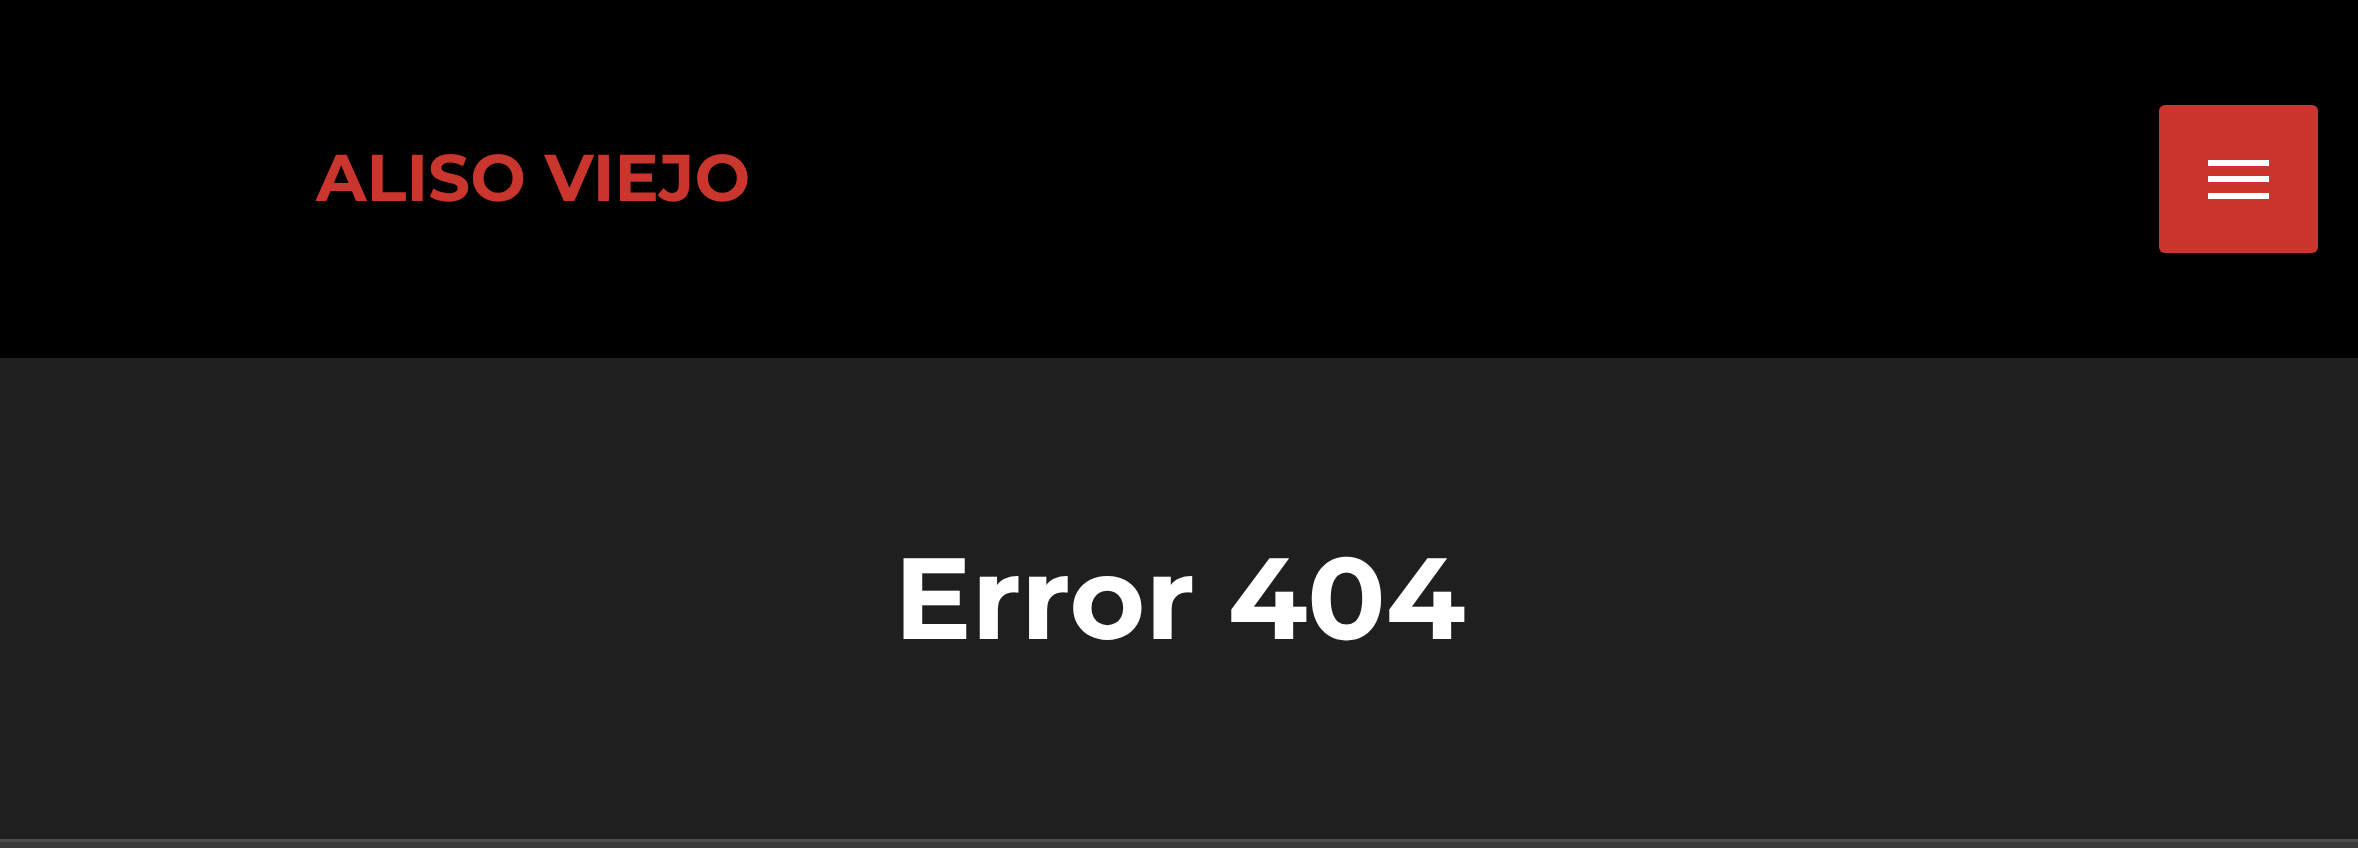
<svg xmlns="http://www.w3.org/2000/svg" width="2358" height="848">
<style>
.a{font:bold 66px Montserrat;fill:#ca352d}
.b{font:bold 115.5px Montserrat;fill:#fff}
</style>
<rect width="100%" height="100%" fill="#1f1f1f"/>
<path fill="#000" d="M0 0h2358v358H0z"/>
<rect fill="#ca352d" x="2159" y="105" width="159" height="148" rx="6"/>
<path fill="#fff" d="M2208 160h61v6H2208z"/>
<path fill="#fff" d="M2208 176h61v6H2208z"/>
<path fill="#fff" d="M2208 193h61v6H2208z"/>
<path fill="#3a3a3a" d="M0 842h2358v6H0z"/>
<path fill="#4e4e4e" d="M0 839h2358v3H0z"/>
<text class="a" x="316" y="201">ALISO VIEJO</text>
<text class="b" x="894" y="639">Error 404</text>
</svg>
